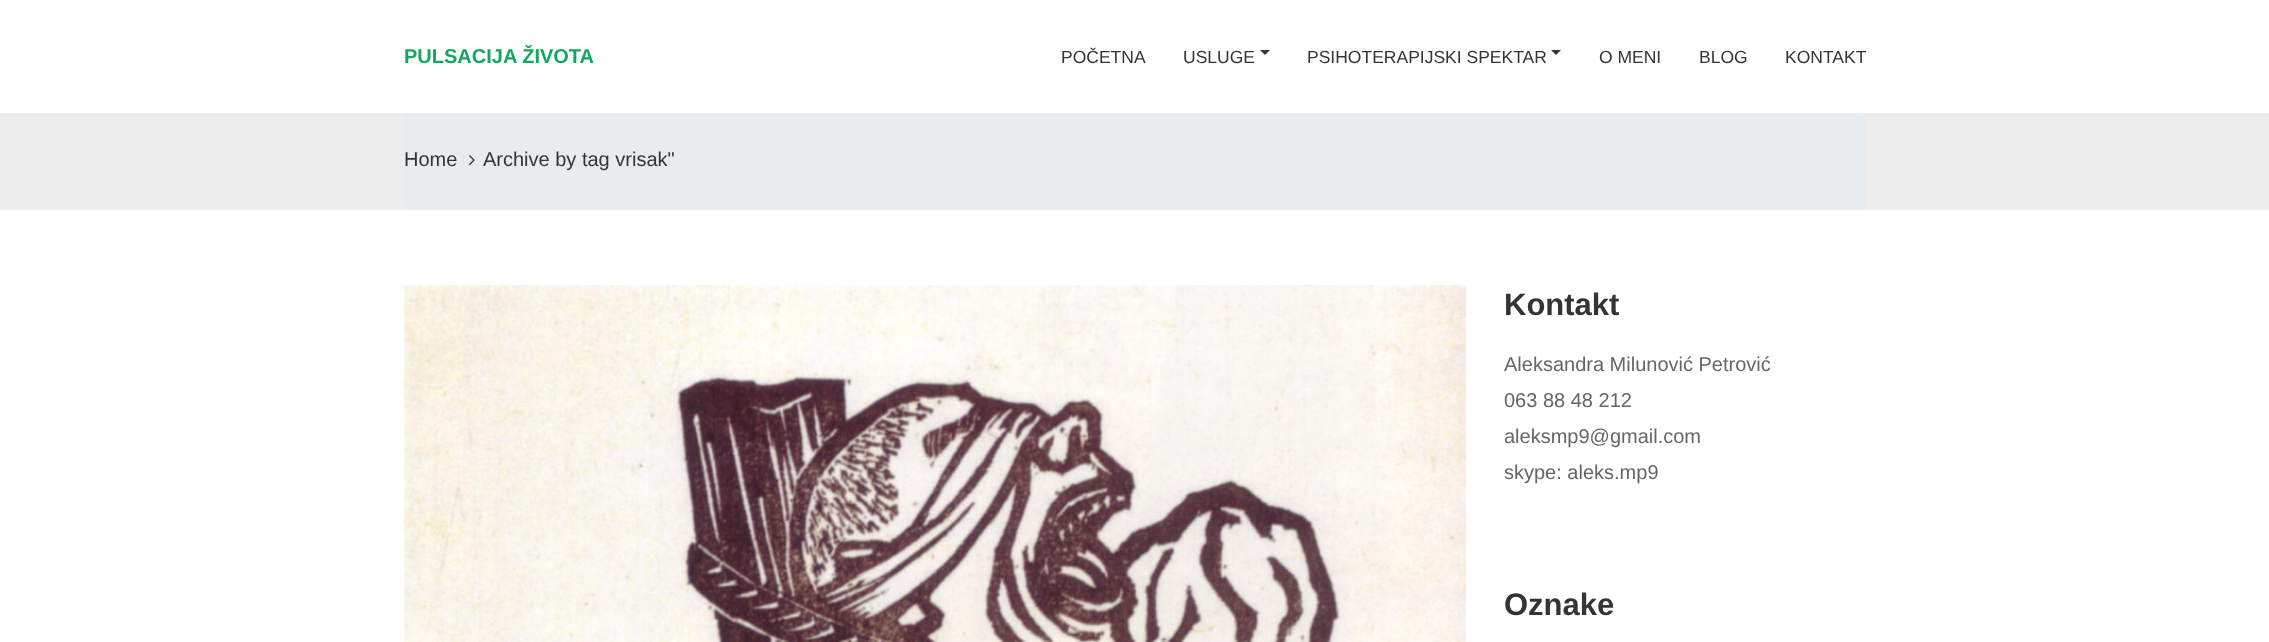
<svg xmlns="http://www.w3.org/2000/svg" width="2269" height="642">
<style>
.a{font:bold 20px Liberation Sans;fill:#12a85f}
.b{font:17.5px Liberation Sans;fill:#343434}
.c{font:20px Liberation Sans;fill:#343434}
.d{font:bold 31px Liberation Sans;fill:#343434}
.e{font:20px Liberation Sans;fill:#666}
</style>
<rect width="100%" height="100%" fill="#fff"/>
<path fill="#343434" d="M1260 50h10l-5 5z"/>
<path fill="#343434" d="M1551 50h10l-5 5z"/>
<path fill="#ededed" d="M0 113h2269v97H0z"/>
<rect fill="#e9ecef" x="404" y="113" width="1462" height="97" rx="5"/>
<image href="1.png" x="469" y="155" width="6" height="10"/>
<image href="2.png" x="404" y="285" width="1062" height="357"/>
<text class="a" x="404" y="63">PULSACIJA ŽIVOTA</text>
<text class="b" x="1061" y="63">POČETNA</text>
<text class="b" x="1183" y="63">USLUGE</text>
<text class="b" x="1307" y="63">PSIHOTERAPIJSKI SPEKTAR</text>
<text class="b" x="1599" y="63">O MENI</text>
<text class="b" x="1699" y="63">BLOG</text>
<text class="b" x="1785" y="63">KONTAKT</text>
<text class="c" x="404" y="166">Home</text>
<text class="c" x="483" y="166">Archive by tag vrisak"</text>
<text class="d" x="1504" y="315">Kontakt</text>
<text class="e" x="1504" y="371">Aleksandra Milunović Petrović</text>
<text class="e" x="1504" y="407">063 88 48 212</text>
<text class="e" x="1504" y="443">aleksmp9@gmail.com</text>
<text class="e" x="1504" y="479">skype: aleks.mp9</text>
<text class="d" x="1504" y="615">Oznake</text>
</svg>
